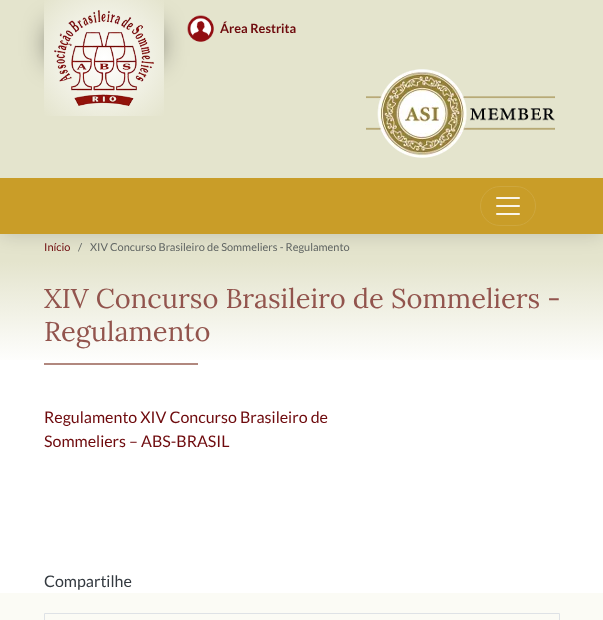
<svg xmlns="http://www.w3.org/2000/svg" width="603" height="620">
<style>
.a{font:bold 12.75px Lato;fill:#6e0a0d}
.b{font:11px Lato;fill:#6e0a0d}
.c{font:11px Lato;fill:#606563}
.d{font:27.25px Lora;fill:#92544d}
.e{font:16px Lato;fill:#6e0a0d}
.f{font:16px Lato;fill:#343a40}
</style>
<defs>
<linearGradient id="g1" gradientUnits="userSpaceOnUse" x1="302" y1="261" x2="302" y2="365"><stop offset="0" stop-color="#e4e4cd"/><stop offset="1" stop-color="#fff"/></linearGradient>
<radialGradient id="g2" gradientUnits="userSpaceOnUse" cx="0" cy="0" r="1" gradientTransform="matrix(85 0 0 82 104 58)"><stop offset="0" stop-color="#fff"/><stop offset="1" stop-color="#e4e4cd"/></radialGradient>
</defs>
<rect width="100%" height="100%" fill="#fff"/>
<path fill="#e4e4cd" d="M0 234h603v27H0z"/>
<path fill="url(#g1)" d="M0 261h603v99H0z"/>
<path fill="#00000029" filter="blur(10px)" d="M0 0h603v234H0z"/>
<path fill="#e4e4cd" d="M0 0h603v178H0z"/>
<path fill="#000" filter="blur(15px)" d="M54 30h100v27H54z"/>
<path fill="url(#g2)" d="M44 0h120v116H44z"/>
<image href="1.png" x="54" y="10" width="100" height="96"/>
<image href="2.png" x="187" y="15" width="27" height="27"/>
<image href="3.png" x="366" y="69" width="189" height="89"/>
<path fill="#c99d28" d="M0 178h603v56H0z"/>
<rect fill="none" stroke="#cea73e" x="480.5" y="186.5" width="55" height="39" rx="19.5"/>
<image href="4.png" x="496" y="197" width="24" height="18"/>
<path fill="#b1887f" d="M44 363h154v2H44z"/>
<path fill="#fbfbf5" d="M0 593h603v27H0z"/>
<path fill="none" stroke="#dee2e6" d="M44.5 613.5h515v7H44.5z"/>
<text class="a" x="220" y="33">Área Restrita</text>
<text class="b" x="44" y="251">Início</text>
<text class="c" x="78" y="251">/</text>
<text class="c" x="90" y="251">XIV Concurso Brasileiro de Sommeliers - Regulamento</text>
<text class="d" x="44" y="308">XIV Concurso Brasileiro de Sommeliers -</text>
<text class="d" x="44" y="341">Regulamento</text>
<text class="e" x="44" y="423">Regulamento XIV Concurso Brasileiro de</text>
<text class="e" x="44" y="447">Sommeliers – ABS-BRASIL</text>
<text class="f" x="44" y="587">Compartilhe</text>
</svg>
